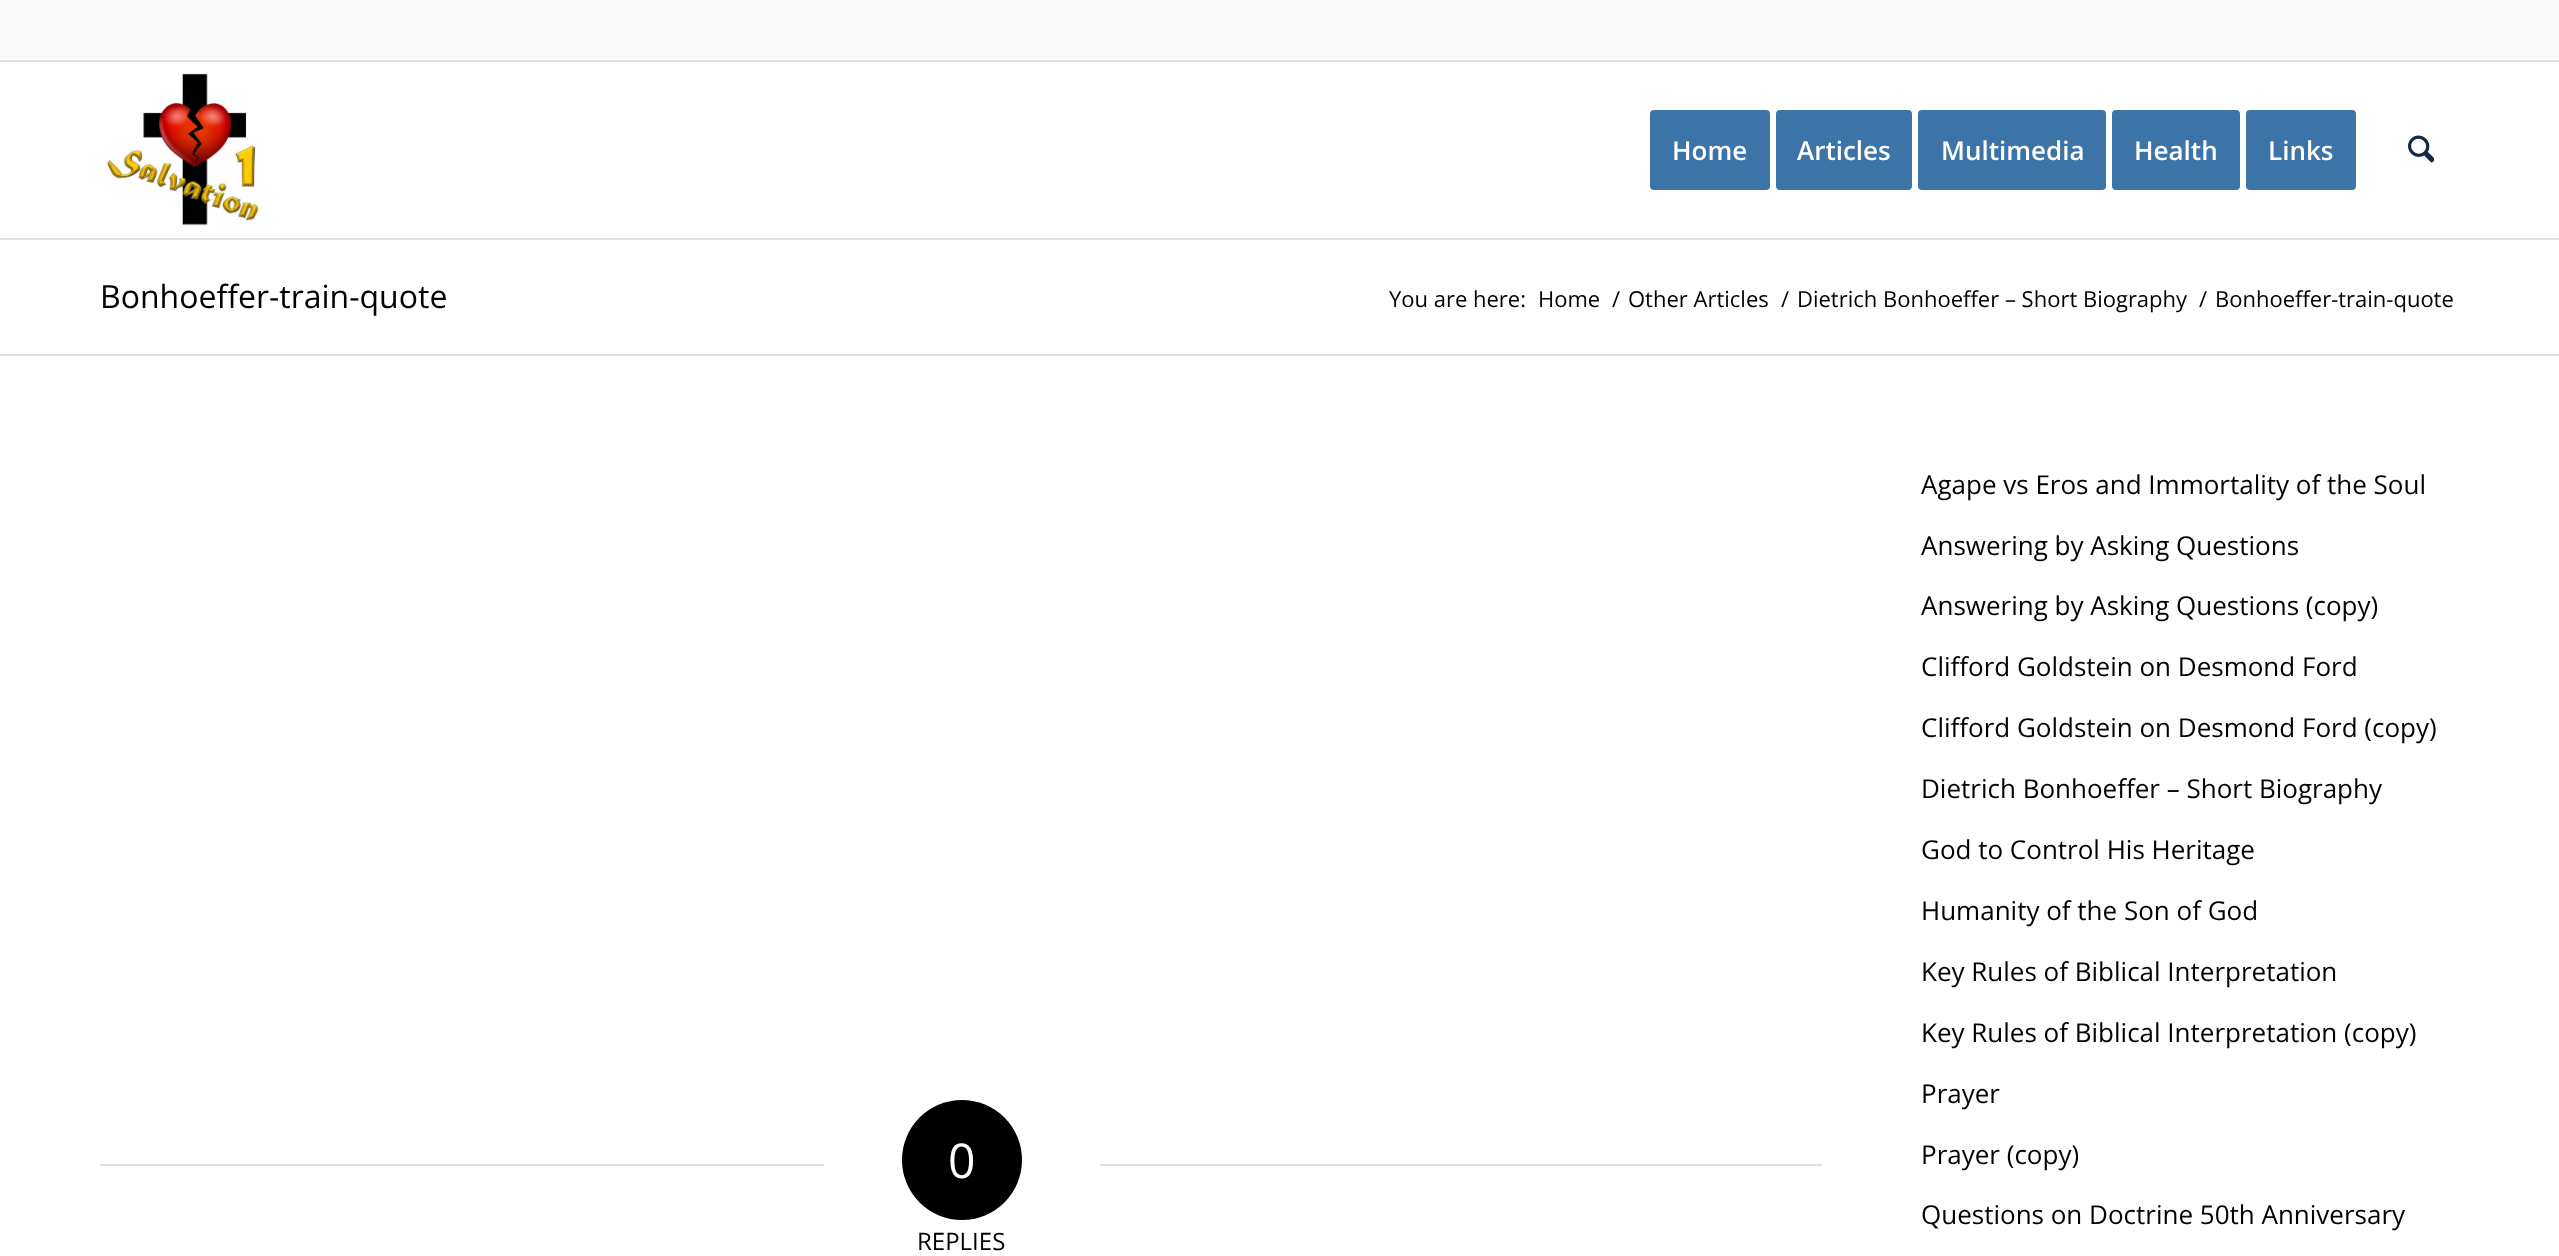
<svg xmlns="http://www.w3.org/2000/svg" width="2559" height="1256">
<style>
.a{font:600 26px Open Sans;fill:#fff}
.b{font:32px Open Sans;fill:#000}
.c{font:22px Open Sans;fill:#000}
.d{font:48px Open Sans;fill:#fff}
.e{font:24px Open Sans;fill:#000}
.f{font:26px Open Sans;fill:#000}
</style>
<rect width="100%" height="100%" fill="#fff"/>
<path fill="#fafafa" d="M0 0h2559v60H0z"/>
<path fill="#e1e1e1" d="M0 60h2559v2H0z"/>
<path fill="#e1e1e1" d="M0 238h2559v2H0z"/>
<image href="1.png" x="106" y="73" width="153" height="153"/>
<rect fill="#3d74a8" stroke="#3d74a8" stroke-width="4" x="1652" y="112" width="116" height="76" rx="2"/>
<rect fill="#3d74a8" stroke="#3d74a8" stroke-width="4" x="1778" y="112" width="132" height="76" rx="2"/>
<rect fill="#3d74a8" stroke="#3d74a8" stroke-width="4" x="1920" y="112" width="184" height="76" rx="2"/>
<rect fill="#3d74a8" stroke="#3d74a8" stroke-width="4" x="2114" y="112" width="124" height="76" rx="2"/>
<rect fill="#3d74a8" stroke="#3d74a8" stroke-width="4" x="2248" y="112" width="106" height="76" rx="2"/>
<image href="2.png" x="2408" y="135" width="26" height="28"/>
<path fill="#e1e1e1" d="M0 354h2559v2H0z"/>
<path fill="#e1e1e1" d="M100 1164h724v2H100z"/>
<circle fill="#000" cx="962" cy="1160" r="60"/>
<path fill="#e1e1e1" d="M1100 1164h722v2H1100z"/>
<text class="a" x="1672" y="160">Home</text>
<text class="a" x="1797" y="160">Articles</text>
<text class="a" x="1941" y="160">Multimedia</text>
<text class="a" x="2134" y="160">Health</text>
<text class="a" x="2268" y="160">Links</text>
<text class="b" x="100" y="308">Bonhoeffer-train-quote</text>
<text class="c" x="1389" y="307">You are here:</text>
<text class="c" x="1538" y="307">Home</text>
<text class="c" x="1612" y="307">/</text>
<text class="c" x="1628" y="307">Other Articles</text>
<text class="c" x="1781" y="307">/</text>
<text class="c" x="1797" y="307">Dietrich Bonhoeffer – Short Biography</text>
<text class="c" x="2199" y="307">/</text>
<text class="c" x="2215" y="307">Bonhoeffer-train-quote</text>
<text class="d" x="948" y="1178">0</text>
<text class="e" x="917" y="1250">REPLIES</text>
<text class="f" x="1921" y="494">Agape vs Eros and Immortality of the Soul</text>
<text class="f" x="1921" y="555">Answering by Asking Questions</text>
<text class="f" x="1921" y="615">Answering by Asking Questions (copy)</text>
<text class="f" x="1921" y="676">Clifford Goldstein on Desmond Ford</text>
<text class="f" x="1921" y="737">Clifford Goldstein on Desmond Ford (copy)</text>
<text class="f" x="1921" y="798">Dietrich Bonhoeffer – Short Biography</text>
<text class="f" x="1921" y="859">God to Control His Heritage</text>
<text class="f" x="1921" y="920">Humanity of the Son of God</text>
<text class="f" x="1921" y="981">Key Rules of Biblical Interpretation</text>
<text class="f" x="1921" y="1042">Key Rules of Biblical Interpretation (copy)</text>
<text class="f" x="1921" y="1103">Prayer</text>
<text class="f" x="1921" y="1164">Prayer (copy)</text>
<text class="f" x="1921" y="1224">Questions on Doctrine 50th Anniversary</text>
</svg>
